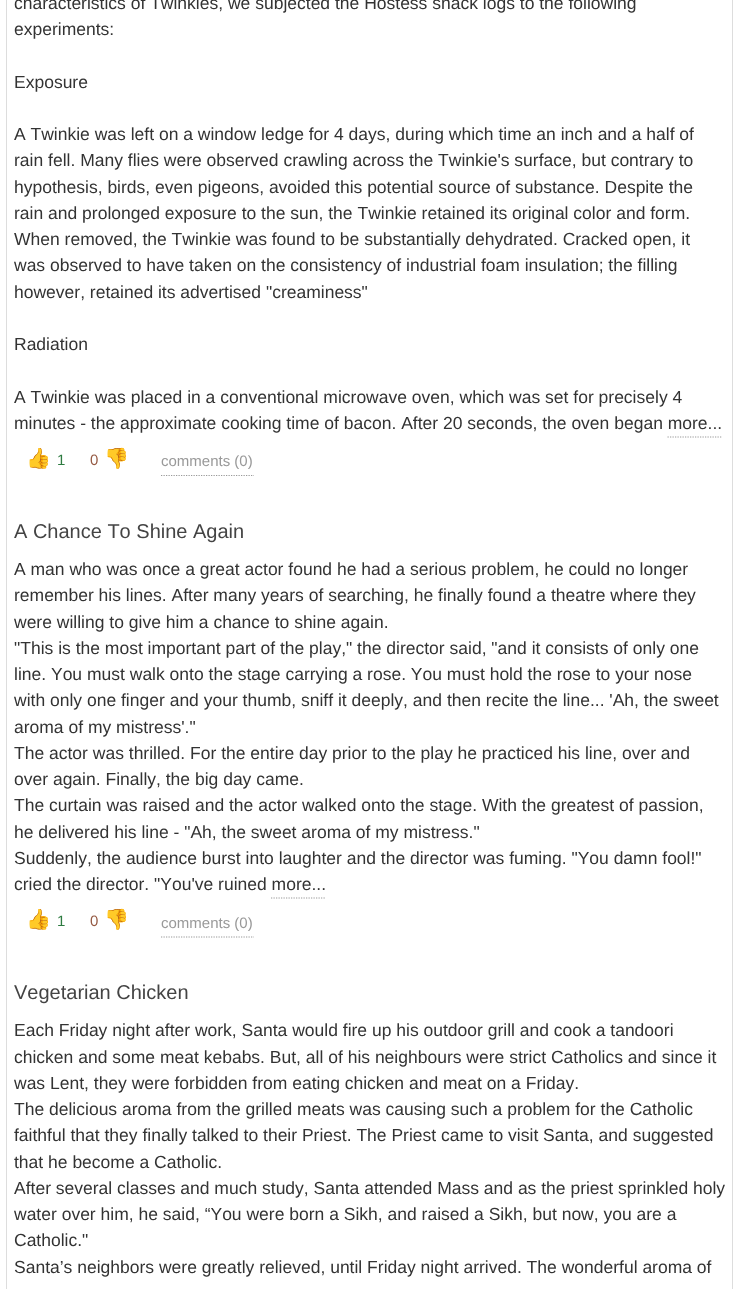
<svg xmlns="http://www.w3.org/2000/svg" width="754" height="1289">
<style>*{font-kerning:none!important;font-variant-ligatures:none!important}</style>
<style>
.a{font:17.5px Liberation Sans;fill:#333}
.b{font:20px Noto Color Emoji;fill:#2d7b40}
.c{font:15px Liberation Sans;fill:#2d7b40}
.d{font:15px Liberation Sans;fill:#955942}
.e{font:20px Noto Color Emoji;fill:#955942}
.f{font:15px Liberation Sans;fill:#999}
.g{font:20px Liberation Sans;fill:#444}
</style>
<rect width="100%" height="100%" fill="#fff"/>
<path fill="none" stroke="#ddd" d="M6.5 -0.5h726v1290H6.5z"/>
<path fill="none" stroke="#999" stroke-width="1.2" stroke-dasharray="1.25 1.25" d="M667.5 437h55"/>
<path fill="none" stroke="#999" stroke-width="1.2" stroke-dasharray="1.25 1.25" d="M161 475.5h93"/>
<path fill="none" stroke="#999" stroke-width="1.2" stroke-dasharray="1.25 1.25" d="M271 898h55"/>
<path fill="none" stroke="#999" stroke-width="1.2" stroke-dasharray="1.25 1.25" d="M161 937h93"/>
<text class="a" x="14" y="9">characteristics of Twinkies, we subjected the Hostess snack logs to the following</text>
<text class="a" x="14" y="35">experiments:</text>
<text class="a" x="14" y="88">Exposure</text>
<text class="a" x="14" y="140">A Twinkie was left on a window ledge for 4 days, during which time an inch and a half of</text>
<text class="a" x="14" y="166">rain fell. Many flies were observed crawling across the Twinkie's surface, but contrary to</text>
<text class="a" x="14" y="193">hypothesis, birds, even pigeons, avoided this potential source of substance. Despite the</text>
<text class="a" x="14" y="219">rain and prolonged exposure to the sun, the Twinkie retained its original color and form.</text>
<text class="a" x="14" y="245">When removed, the Twinkie was found to be substantially dehydrated. Cracked open, it</text>
<text class="a" x="14" y="271">was observed to have taken on the consistency of industrial foam insulation; the filling</text>
<text class="a" x="14" y="298">however, retained its advertised "creaminess"</text>
<text class="a" x="14" y="350">Radiation</text>
<text class="a" x="14" y="403">A Twinkie was placed in a conventional microwave oven, which was set for precisely 4</text>
<text class="a" x="14" y="429">minutes - the approximate cooking time of bacon. After 20 seconds, the oven began more...</text>
<text class="b" x="26" y="465">👍</text>
<text class="c" x="57" y="465">1</text>
<text class="d" x="90" y="465">0</text>
<text class="e" x="104" y="465">👎</text>
<text class="f" x="161" y="466">comments (0)</text>
<text class="g" x="14" y="538">A Chance To Shine</text>
<text class="g" x="193" y="538">Again</text>
<text class="a" x="14" y="575">A man who was once a great actor found he had a serious problem, he could no longer</text>
<text class="a" x="14" y="601">remember his lines. After many years of searching, he finally found a theatre where they</text>
<text class="a" x="14" y="628">were willing to give him a chance to shine again.</text>
<text class="a" x="14" y="654">"This is the most important part of the play," the director said, "and it consists of only one</text>
<text class="a" x="14" y="680">line. You must walk onto the stage carrying a rose. You must hold the rose to your nose</text>
<text class="a" x="14" y="706">with only one finger and your thumb, sniff it deeply, and then recite the line... 'Ah, the sweet</text>
<text class="a" x="14" y="733">aroma of my mistress'."</text>
<text class="a" x="14" y="759">The actor was thrilled. For the entire day prior to the play he practiced his line, over and</text>
<text class="a" x="14" y="785">over again. Finally, the big day came.</text>
<text class="a" x="14" y="811">The curtain was raised and the actor walked onto the stage. With the greatest of passion,</text>
<text class="a" x="14" y="838">he delivered his line - "Ah, the sweet aroma of my mistress."</text>
<text class="a" x="14" y="864">Suddenly, the audience burst into laughter and the director was fuming. "You damn fool!"</text>
<text class="a" x="14" y="890">cried the director. "You've ruined more...</text>
<text class="b" x="26" y="926">👍</text>
<text class="c" x="57" y="926">1</text>
<text class="d" x="90" y="926">0</text>
<text class="e" x="104" y="926">👎</text>
<text class="f" x="161" y="928">comments (0)</text>
<text class="g" x="14" y="999">Vegetarian Chicken</text>
<text class="a" x="14" y="1036">Each Friday night after work, Santa would fire up his outdoor grill and cook a tandoori</text>
<text class="a" x="14" y="1063">chicken and some meat kebabs. But, all of his neighbours were strict Catholics and since it</text>
<text class="a" x="14" y="1089">was Lent, they were forbidden from eating chicken and meat on a Friday.</text>
<text class="a" x="14" y="1115">The delicious aroma from the grilled meats was causing such a problem for the Catholic</text>
<text class="a" x="14" y="1141">faithful that they finally talked to their Priest. The Priest came to visit Santa, and suggested</text>
<text class="a" x="14" y="1168">that he become a Catholic.</text>
<text class="a" x="14" y="1194">After several classes and much study, Santa attended Mass and as the priest sprinkled holy</text>
<text class="a" x="14" y="1220">water over him, he said, “You were born a Sikh, and raised a Sikh, but now, you are a</text>
<text class="a" x="14" y="1246">Catholic."</text>
<text class="a" x="14" y="1273">Santa’s neighbors were greatly relieved, until Friday night arrived. The wonderful aroma of</text>
</svg>
